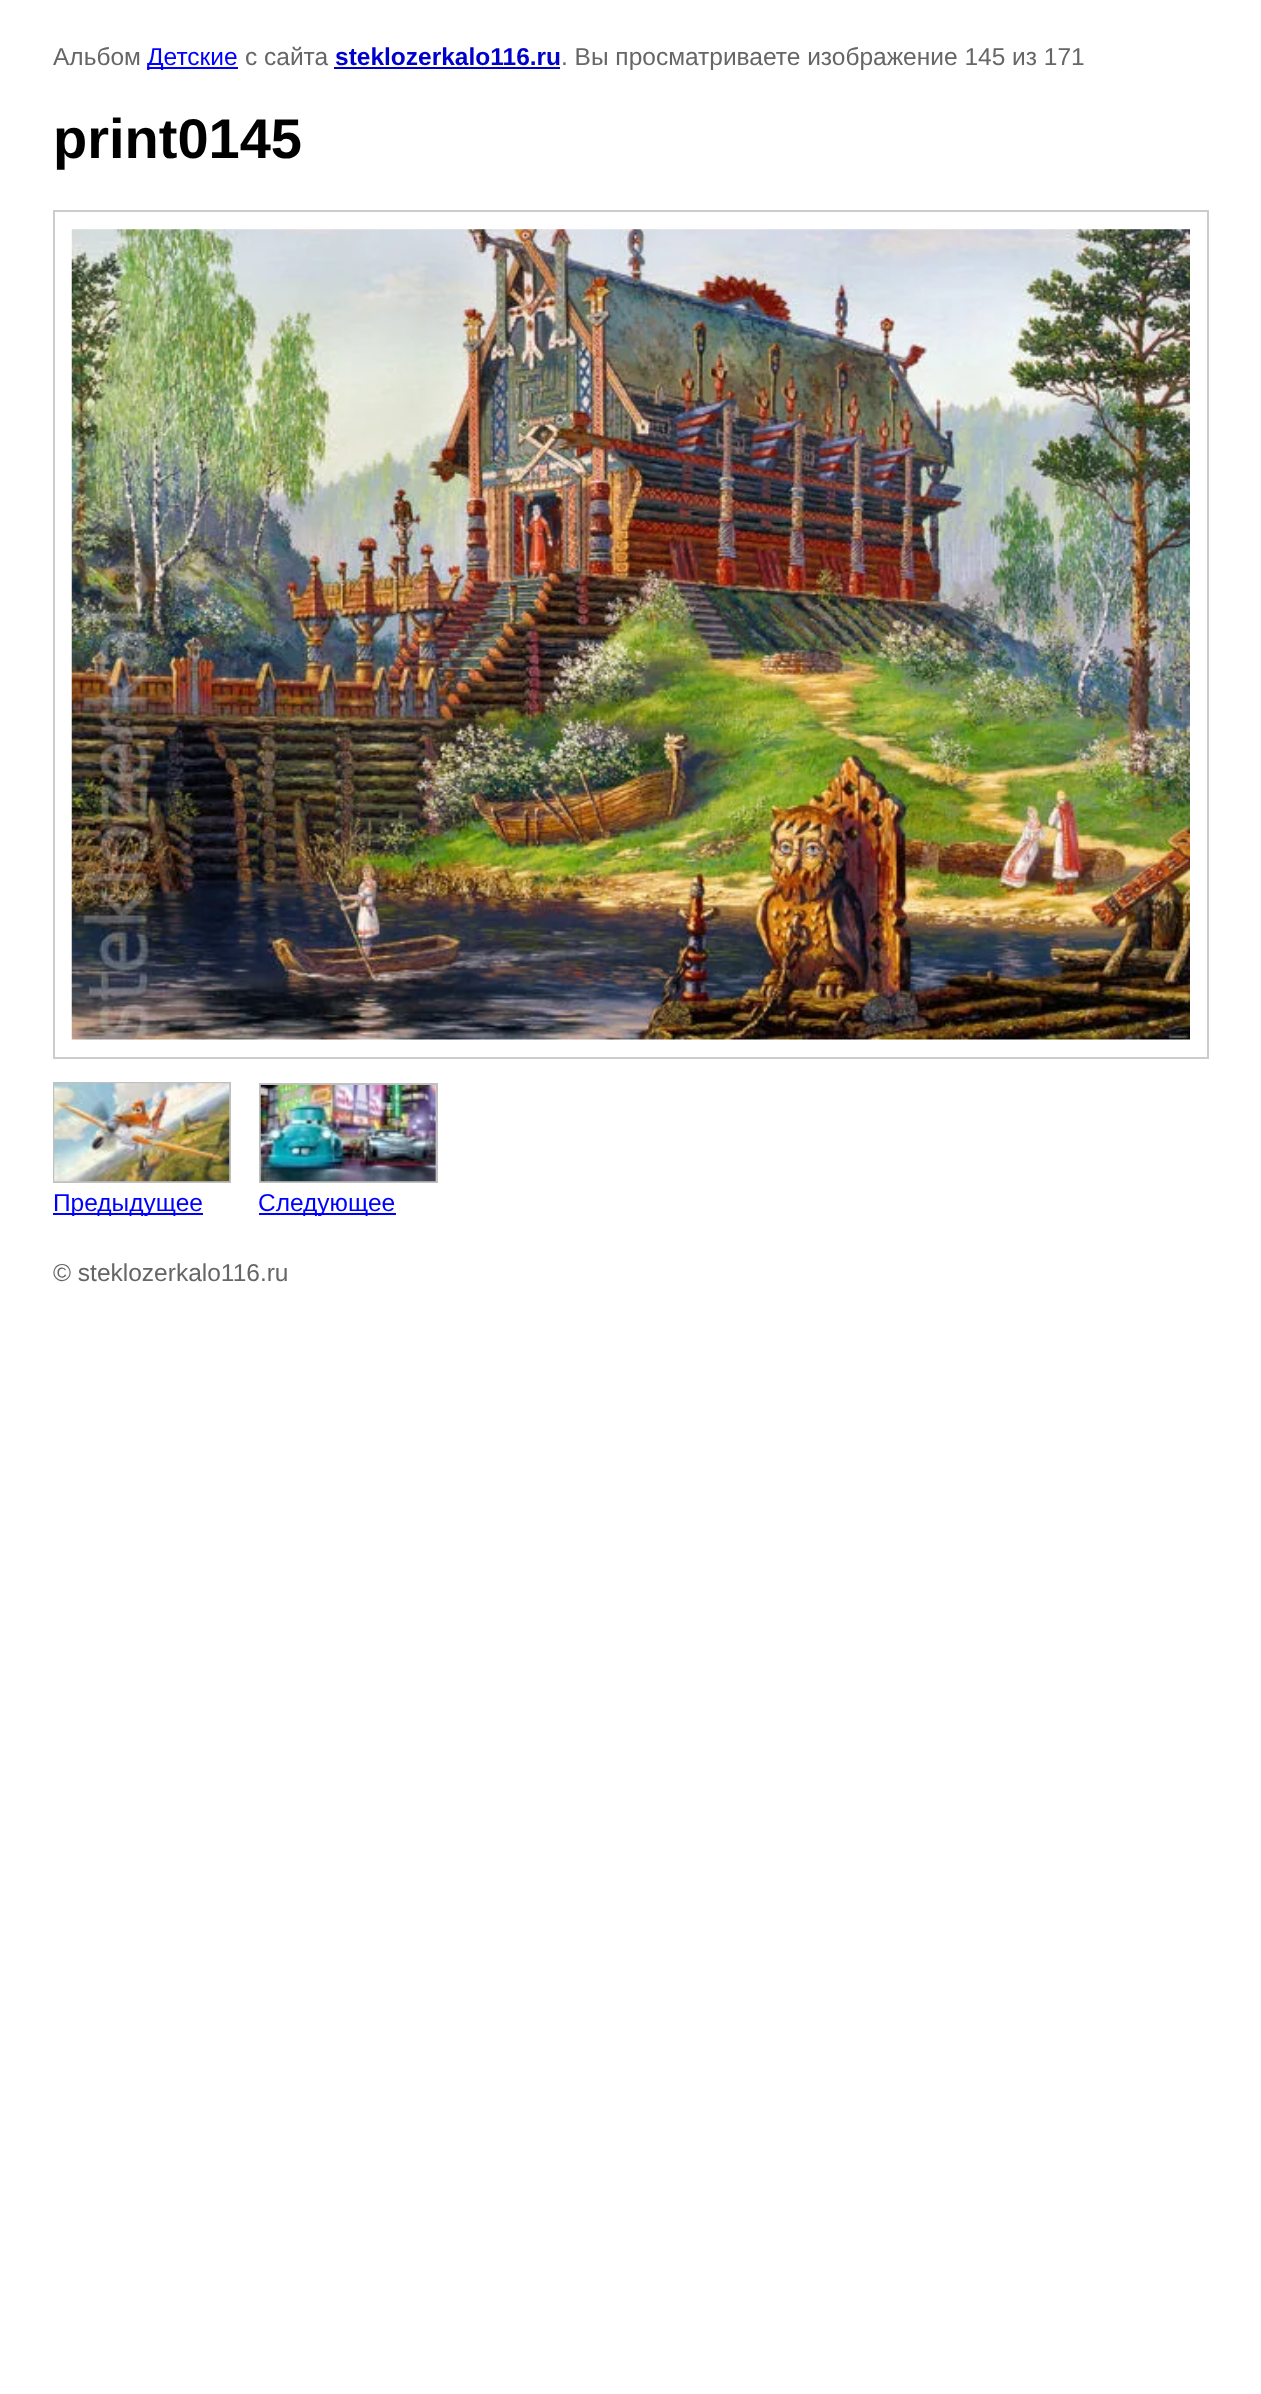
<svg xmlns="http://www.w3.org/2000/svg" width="1261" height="2394">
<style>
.a{font:24.5px Liberation Sans;fill:#666}
.b{font:24.5px Liberation Sans;fill:#00f}
.c{font:bold 24.5px Liberation Sans;fill:#00c}
.d{font:bold 56px Liberation Sans;fill:#000}
</style>
<rect width="100%" height="100%" fill="#fff"/>
<path fill="#00f" d="M147 67h91v2H147z"/>
<path fill="#00c" d="M334 67h226v2H334z"/>
<path fill="none" stroke="#ccc" stroke-width="2" d="M54 211h1154v847H54z"/>
<image href="1.png" x="71" y="229" width="1119" height="811"/>
<path fill="none" stroke="#c0c0c0" stroke-width="2" d="M54 1083h176v99H54z"/>
<image href="2.png" x="54" y="1083" width="176" height="99"/>
<path fill="#00f" d="M53 1213h150v2H53z"/>
<path fill="none" stroke="#c0c0c0" stroke-width="2" d="M260 1084h177v98H260z"/>
<image href="3.png" x="260" y="1085" width="176" height="97"/>
<path fill="#00f" d="M259 1213h137v2H259z"/>
<text class="a" x="53" y="65">Альбом</text>
<text class="b" x="147" y="65">Детские</text>
<text class="a" x="245" y="65">с сайта</text>
<text class="c" x="335" y="65">steklozerkalo116.ru</text>
<text class="a" x="561" y="65">. Вы просматриваете изображение 145 из 171</text>
<text class="d" x="53" y="158">print0145</text>
<text class="b" x="53" y="1211">Предыдущее</text>
<text class="b" x="258" y="1211">Следующее</text>
<text class="a" x="53" y="1281">© steklozerkalo116.ru</text>
</svg>
